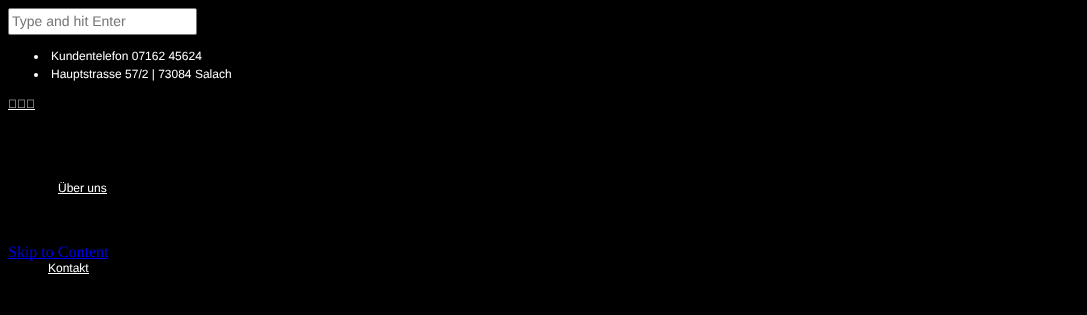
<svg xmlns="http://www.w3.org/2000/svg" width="1087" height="315">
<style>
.a{font:14px Liberation Sans;fill:#757575}
.b{font:12px Liberation Sans;fill:#fff}
.c{font:16px Liberation Serif;fill:#00e}
</style>
<rect width="100%" height="100%" fill="#000"/>
<rect fill="#fff" stroke="#767676" x="8.5" y="8.5" width="188" height="26" rx="1.5"/>
<circle fill="#fff" cx="36" cy="57" r="2"/>
<circle fill="#fff" cx="36" cy="75" r="2"/>
<image href="1.png" x="9" y="99" width="7" height="9"/>
<image href="1.png" x="18" y="99" width="7" height="9"/>
<image href="1.png" x="27" y="99" width="7" height="9"/>
<path fill="#fff" d="M8 109h27v1H8z"/>
<path fill="#fff" d="M58 193h49v1H58z"/>
<path fill="#fff" d="M48 273h41v1H48z"/>
<path fill="#00e" d="M8 258h100v1H8z"/>
<text class="a" x="12" y="26">Type and hit Enter</text>
<text class="b" x="51" y="60">Kundentelefon 07162 45624</text>
<text class="b" x="51" y="78">Hauptstrasse 57/2 | 73084 Salach</text>
<text class="b" x="58" y="192">Über uns</text>
<text class="b" x="48" y="272">Kontakt</text>
<text class="c" x="8" y="257">Skip to Content</text>
</svg>
